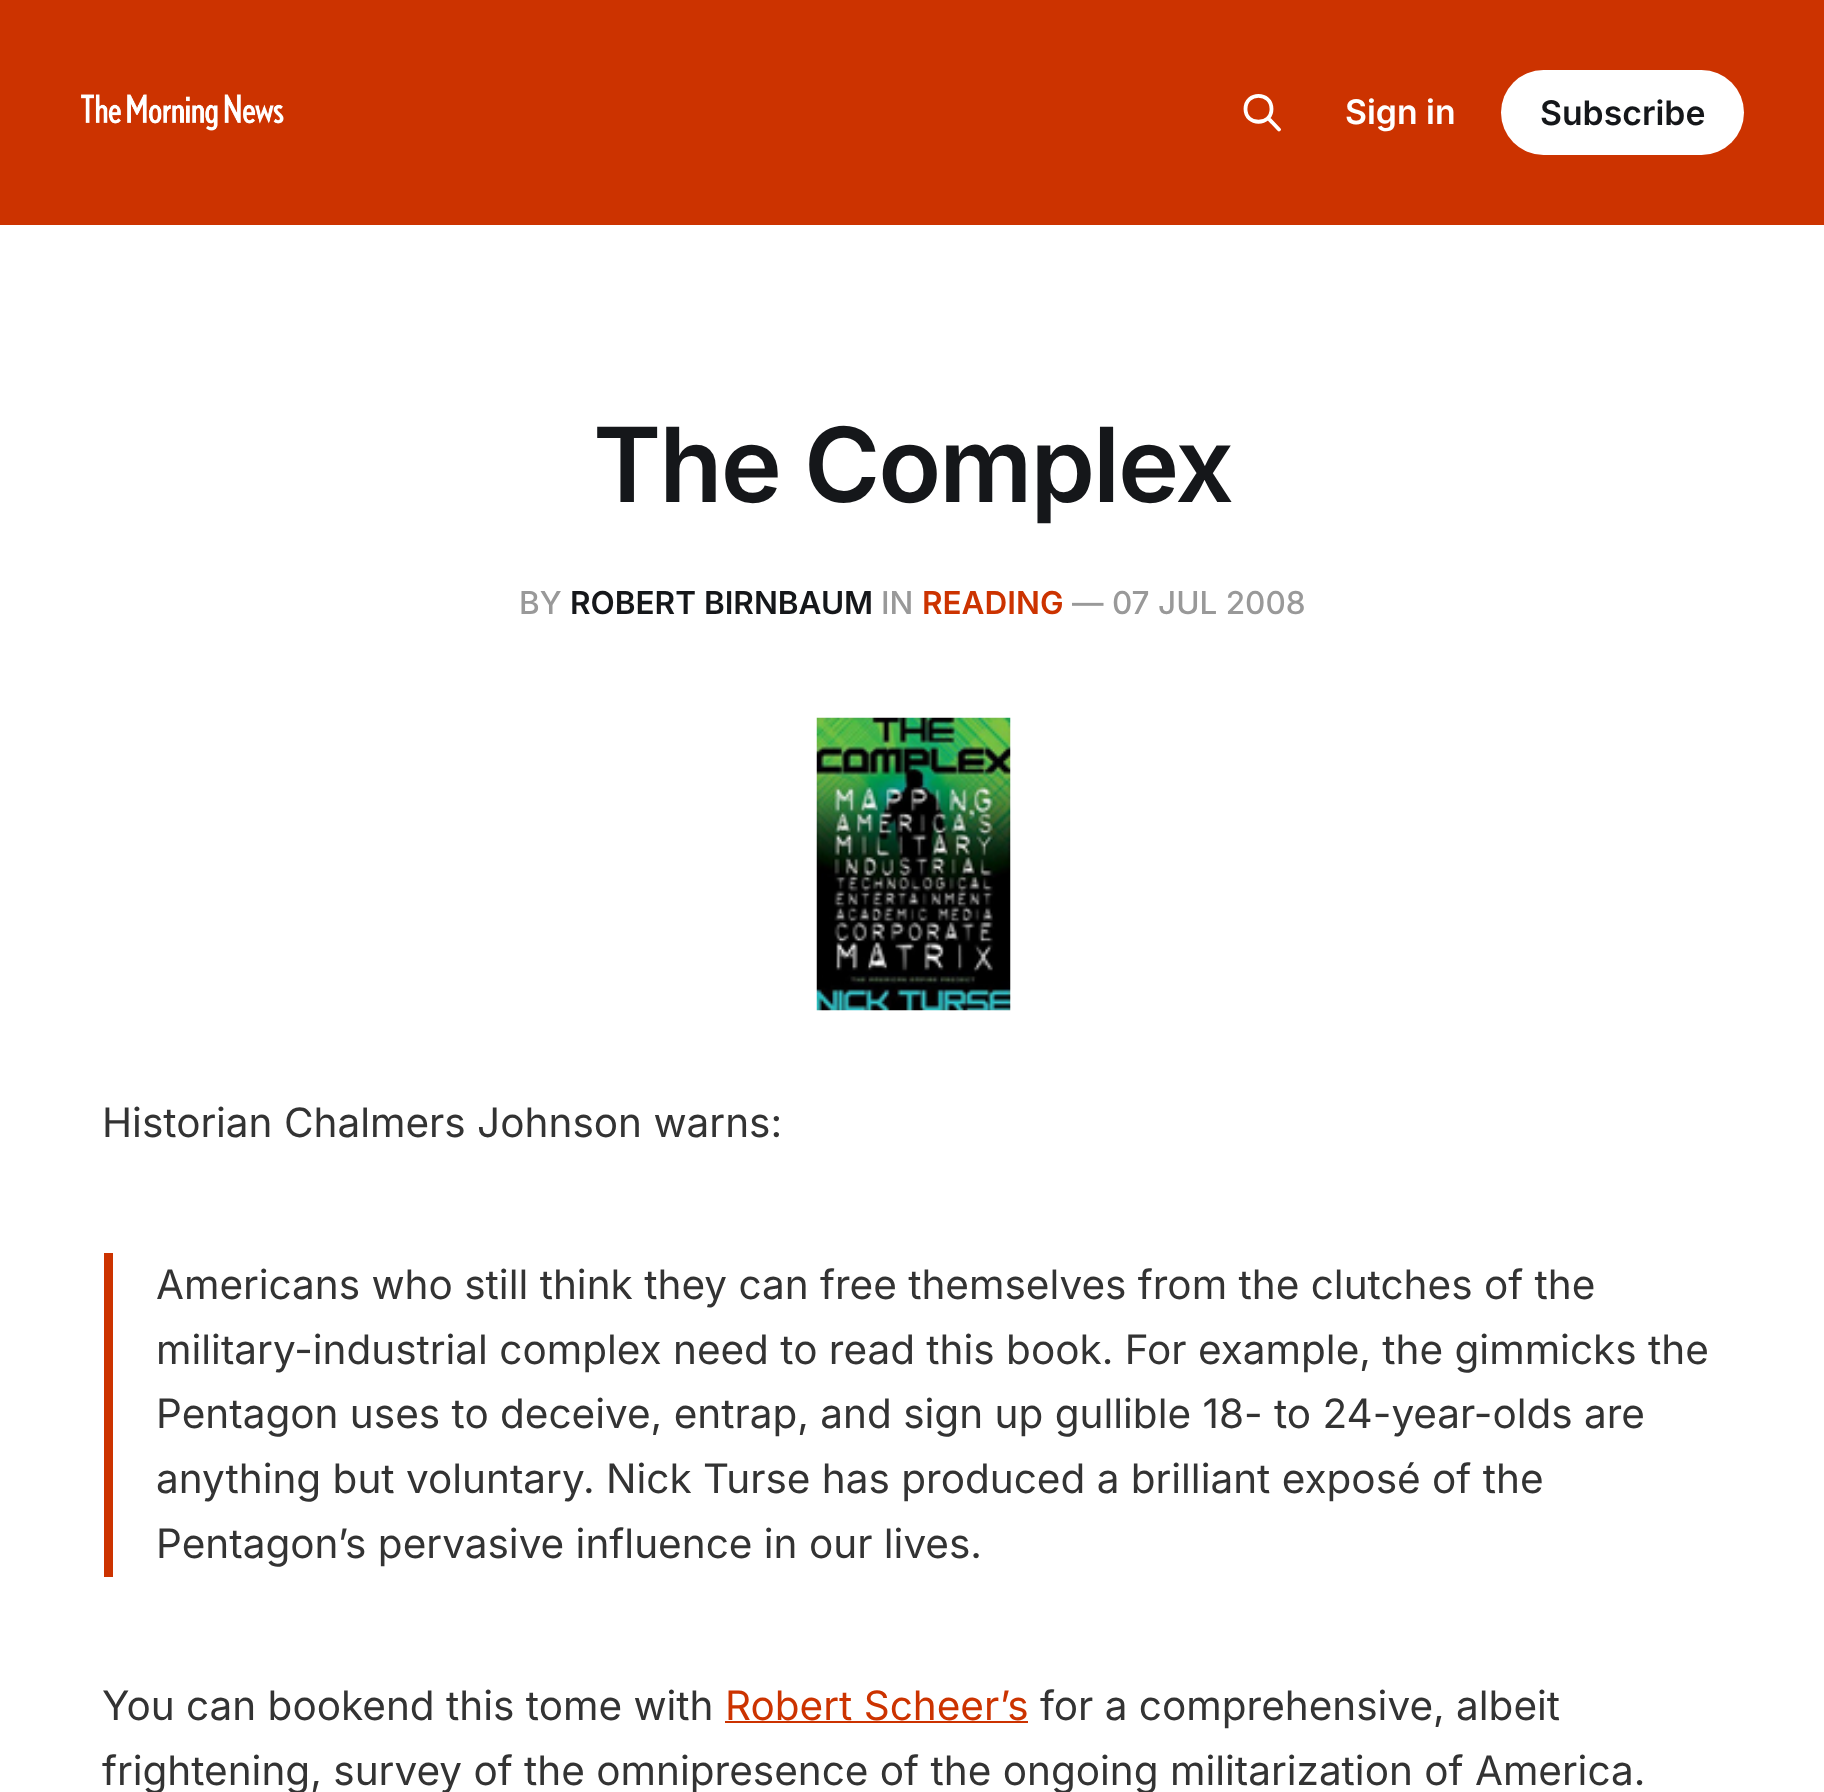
<svg xmlns="http://www.w3.org/2000/svg" width="1824" height="1792">
<style>
.a{font:600 33.75px Inter;fill:#fff}
.b{font:600 33.75px Inter;fill:#15171a}
.c{font:600 103.5px Inter;letter-spacing:-2px;fill:#15171a}
.d{font:500 31.5px Inter;fill:#999}
.e{font:600 31.5px Inter;fill:#15171a}
.f{font:600 31.5px Inter;fill:#c30}
.g{font:40.5px Inter;fill:#333}
.h{font:40.5px Inter;fill:#c30}
</style>
<rect width="100%" height="100%" fill="#fff"/>
<path fill="#c30" d="M0 0h1824v225H0z"/>
<image href="1.png" x="81" y="94" width="203" height="37"/>
<path fill="none" stroke="#fff" stroke-width="3.8" stroke-linecap="round" stroke-linejoin="round" d="M1279 129.5l-11-11.5m3.5-9c0 17-26 17-26 0c0-17.5 26-17.5 26 0z"/>
<rect fill="#fff" x="1501" y="70" width="243" height="85" rx="42.5"/>
<image href="2.png" x="816" y="717" width="195" height="294"/>
<path fill="#c30" d="M104 1253h9v324H104z"/>
<path fill="#c30" d="M725 1721h303v2H725z"/>
<text class="a" x="1345" y="124">Sign in</text>
<text class="b" x="1540" y="125">Subscribe</text>
<text class="c" x="593" y="502">The Complex</text>
<text class="d" x="519" y="614">BY</text>
<text class="e" x="570" y="614">ROBERT BIRNBAUM</text>
<text class="d" x="881" y="614">IN</text>
<text class="f" x="922" y="614">READING</text>
<text class="d" x="1072" y="614">— 07 JUL 2008</text>
<text class="g" x="102" y="1137">Historian Chalmers Johnson warns:</text>
<text class="g" x="156" y="1299">Americans who still think they can free themselves from the clutches of the</text>
<text class="g" x="156" y="1364">military-industrial complex need to read this book. For example, the gimmicks the</text>
<text class="g" x="156" y="1428">Pentagon uses to deceive, entrap, and sign up gullible 18- to 24-year-olds are</text>
<text class="g" x="156" y="1493">anything but voluntary. Nick Turse has produced a brilliant exposé of the</text>
<text class="g" x="156" y="1558">Pentagon’s pervasive influence in our lives.</text>
<text class="g" x="102" y="1720">You can bookend this tome with</text>
<text class="h" x="725" y="1720">Robert Scheer’s</text>
<text class="g" x="1040" y="1720">for a comprehensive, albeit</text>
<text class="g" x="102" y="1785">frightening, survey of the omnipresence of the ongoing militarization of America.</text>
</svg>
